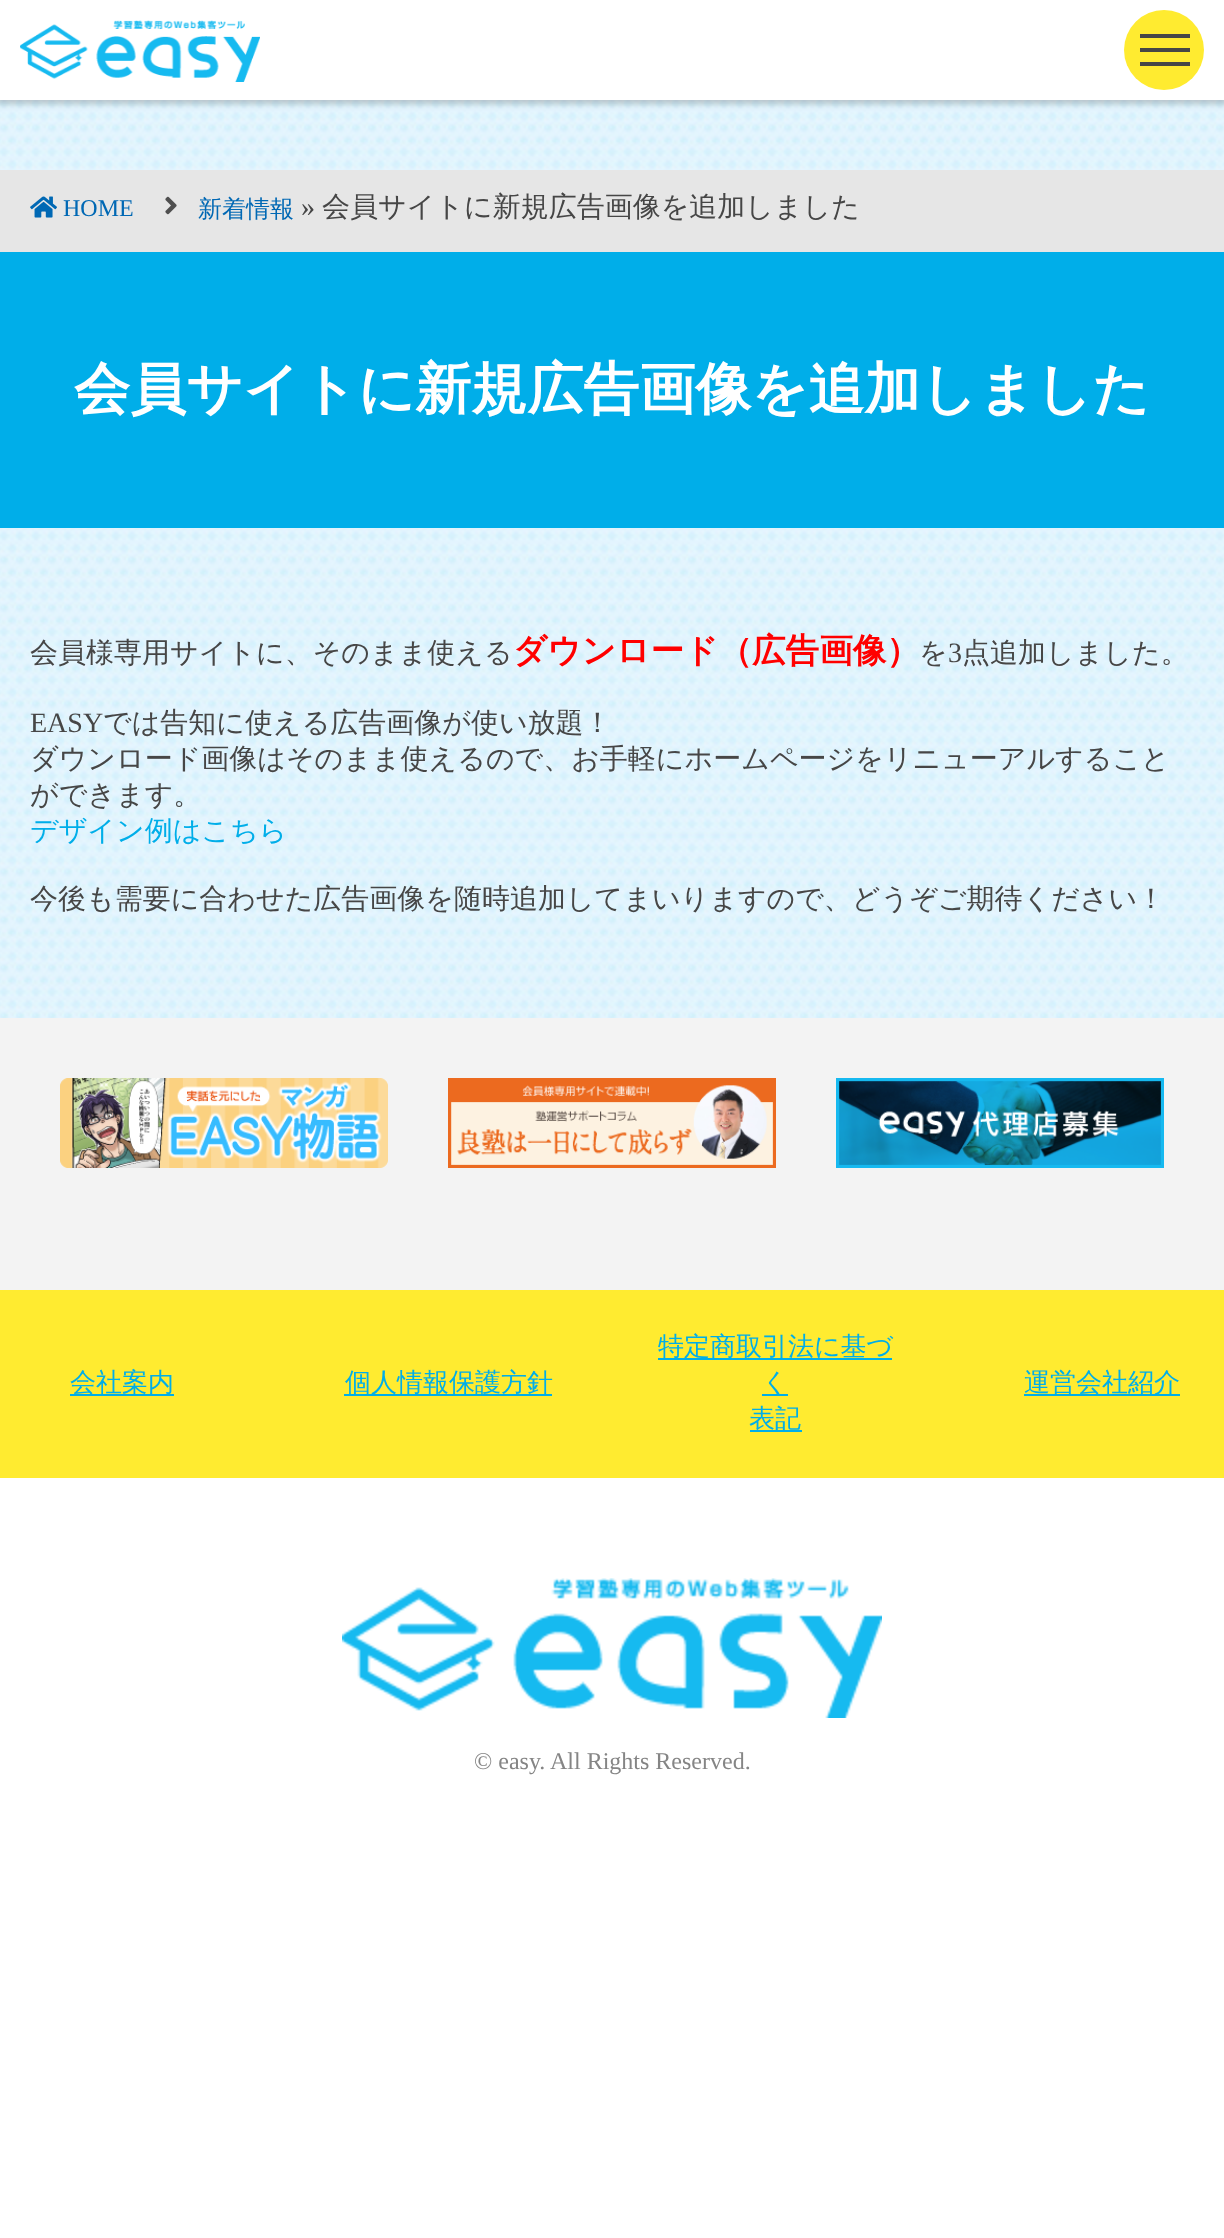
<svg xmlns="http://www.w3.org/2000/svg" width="1224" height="2238">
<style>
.a{font:24px Liberation Serif;fill:#0068b4}
.b{font:500 24px WenQuanYi Zen Hei;fill:#0068b4}
.c{font:28px Liberation Serif;fill:#464646}
.d{font:500 28px WenQuanYi Zen Hei;fill:#464646}
.e{font:bold 56px WenQuanYi Zen Hei;fill:#fff}
.f{font:bold 33.6px WenQuanYi Zen Hei;fill:#f00}
.g{font:500 28px WenQuanYi Zen Hei;fill:#00aee9}
.h{font:500 26px WenQuanYi Zen Hei;fill:#00aee9}
.i{font:24px Liberation Serif;fill:#858585}
</style>
<rect width="100%" height="100%" fill="#fff"/>
<image href="2.png" x="0" y="100" width="1224" height="918"/>
<path fill="#00000033" filter="blur(3px)" d="M-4 -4h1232v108H-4z"/>
<path fill="#fff" d="M0 0h1224v100H0z"/>
<image href="1.png" x="20" y="20" width="240" height="62"/>
<circle fill="#ffeb30" cx="1164" cy="50" r="40"/>
<path fill="#464646" d="M1140 34h50v4H1140z"/>
<path fill="#464646" d="M1140 48h50v4H1140z"/>
<path fill="#464646" d="M1140 62h50v4H1140z"/>
<path fill="#e6e6e6" d="M0 170h1224v82H0z"/>
<image href="3.png" x="30" y="196" width="27" height="22"/>
<image href="4.png" x="165" y="196" width="12" height="19"/>
<path fill="#00aee9" d="M0 252h1224v276H0z"/>
<path fill="#f3f3f3" d="M0 1018h1224v272H0z"/>
<image href="5.png" x="60" y="1078" width="328" height="90"/>
<image href="6.png" x="448" y="1078" width="328" height="90"/>
<image href="7.png" x="836" y="1078" width="328" height="90"/>
<path fill="#ffeb30" d="M0 1290h1224v188H0z"/>
<path fill="#00aee9" d="M70 1394h104v2H70z"/>
<path fill="#00aee9" d="M344 1394h208v2H344z"/>
<path fill="#00aee9" d="M658 1358h234v2H658z"/>
<path fill="#00aee9" d="M762 1394h26v2H762z"/>
<path fill="#00aee9" d="M750 1430h52v2H750z"/>
<path fill="#00aee9" d="M1024 1394h156v2H1024z"/>
<image href="8.png" x="342" y="1578" width="540" height="140"/>
<text class="a" x="63" y="216">HOME</text>
<text class="b" x="198" y="217">新着情報</text>
<text class="c" x="301" y="216">»</text>
<text class="d" x="322" y="216">会員サイトに新規広告画像を追加しました</text>
<text class="e" x="74" y="408">会員サイトに新規広告画像を追加しました</text>
<text class="d" x="30" y="662">会員様専用サイトに、そのまま使える</text>
<text class="f" x="513" y="662">ダウンロード（広告画像）</text>
<text class="d" x="919" y="662">を</text>
<text class="c" x="948" y="662">3</text>
<text class="d" x="962" y="662">点追加しました。</text>
<text class="c" x="30" y="732">EASY</text>
<text class="d" x="103" y="732">では告知に使える広告画像が使い放題！</text>
<text class="d" x="30" y="768">ダウンロード画像はそのまま使えるので、お手軽にホームページをリニューアルすること</text>
<text class="d" x="30" y="804">ができます。</text>
<text class="g" x="30" y="840">デザイン例はこちら</text>
<text class="d" x="30" y="908">今後も需要に合わせた広告画像を随時追加してまいりますので、どうぞご期待ください！</text>
<text class="h" x="70" y="1391">会社案内</text>
<text class="h" x="345" y="1391">個人情報保護方針</text>
<text class="h" x="658" y="1355">特定商取引法に基づ</text>
<text class="h" x="762" y="1391">く</text>
<text class="h" x="749" y="1427">表記</text>
<text class="h" x="1024" y="1391">運営会社紹介</text>
<text class="i" x="474" y="1769">© easy. All Rights Reserved.</text>
</svg>
